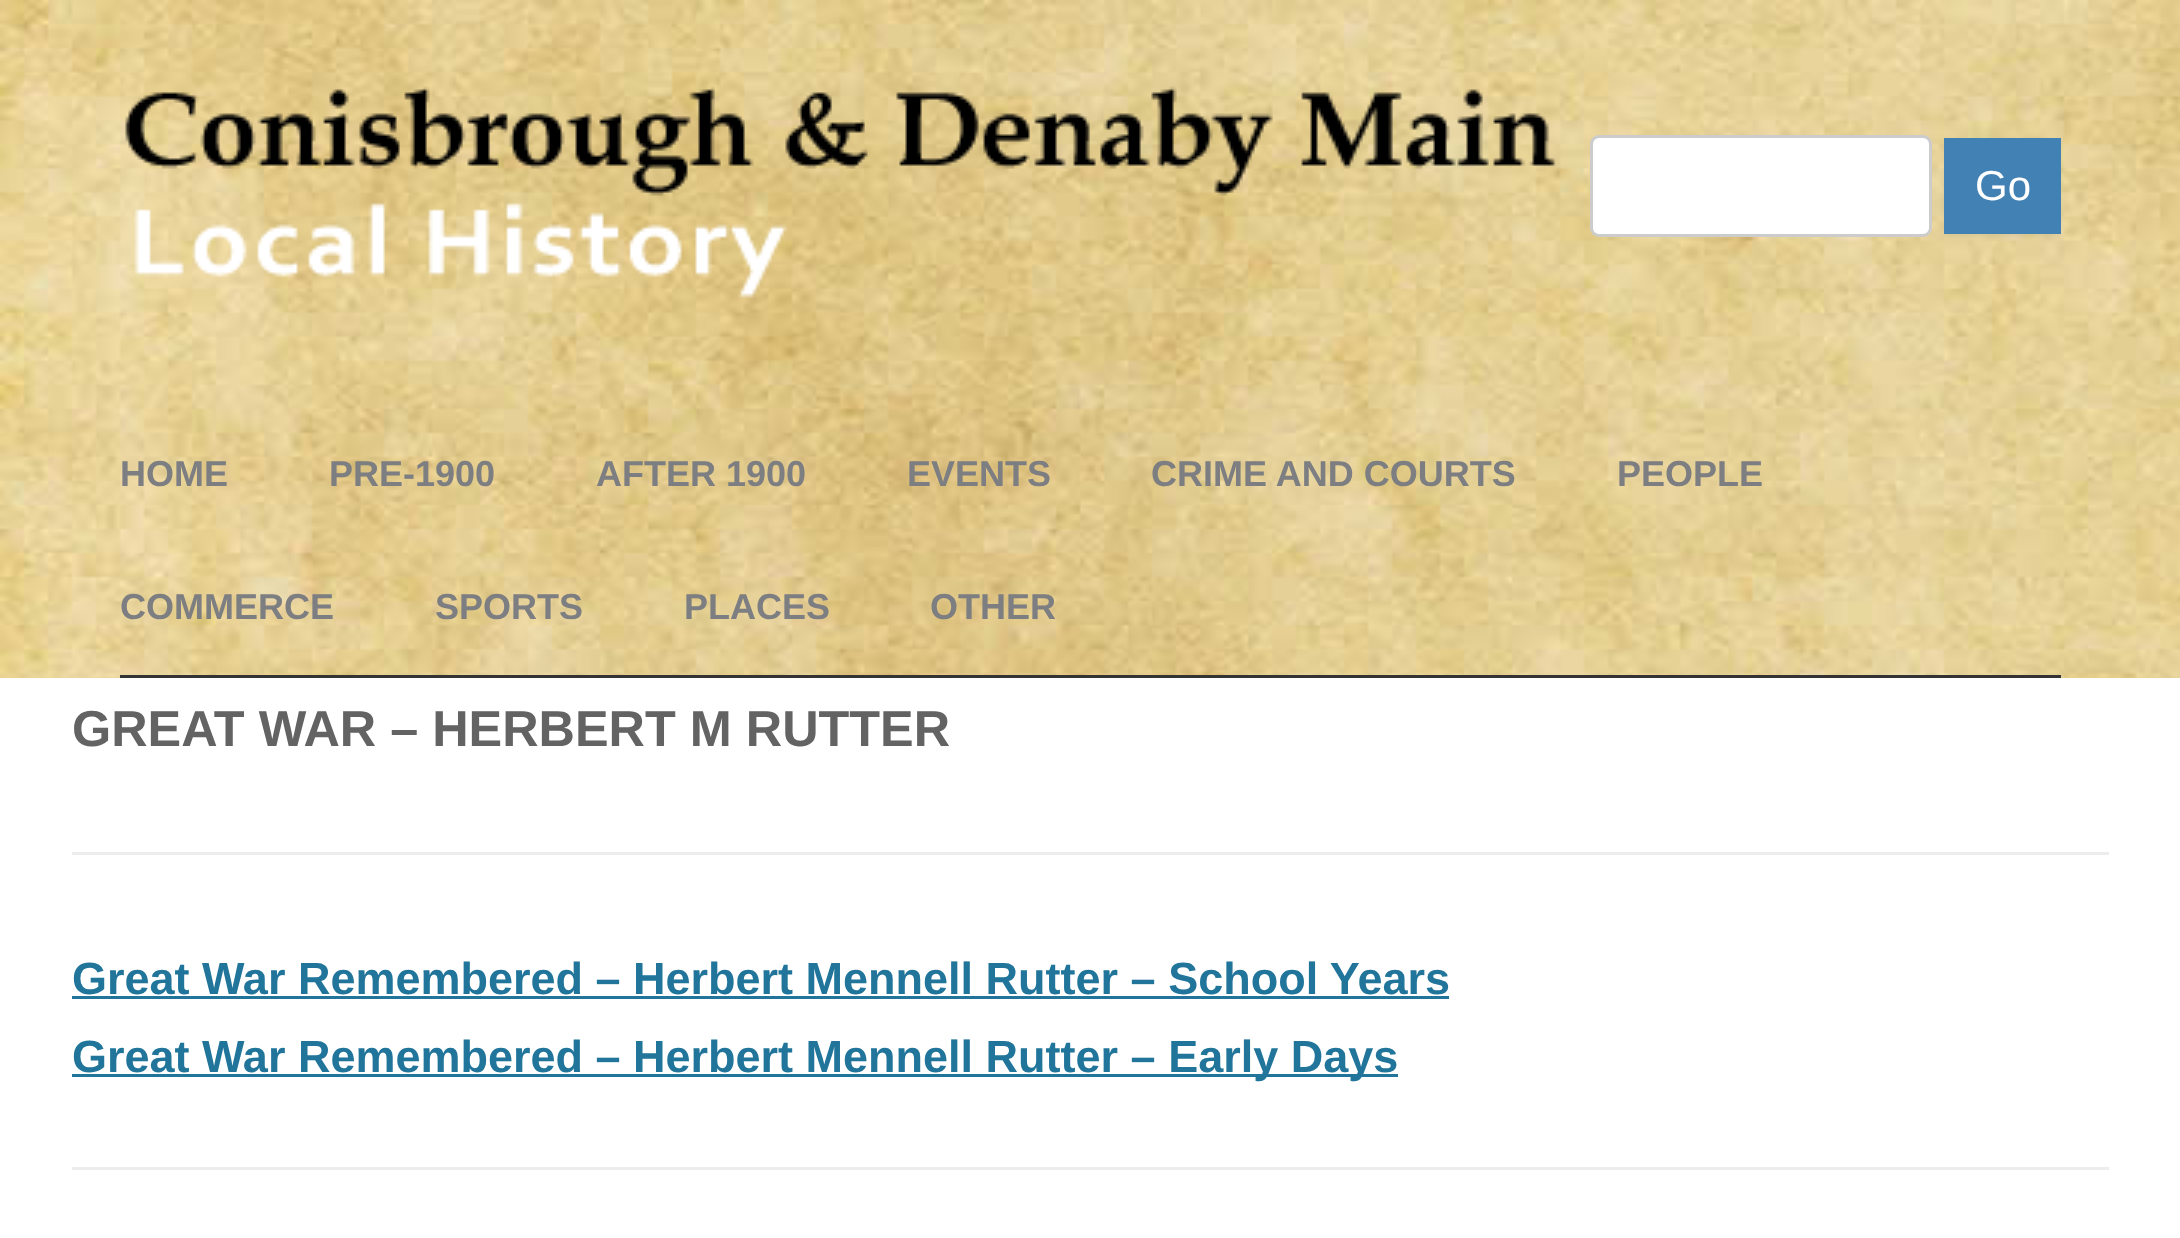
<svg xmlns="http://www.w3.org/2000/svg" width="2180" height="1238">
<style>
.a{font:42px Liberation Sans;fill:#fff}
.b{font:bold 36px Liberation Sans;fill:#7c7e81}
.c{font:bold 50.4px Liberation Sans;fill:#636363}
.d{font:bold 45px Liberation Sans;fill:#21759b}
</style>
<defs>
<clipPath id="clip1"><path d="M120 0h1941v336H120z"/></clipPath>
</defs>
<rect width="100%" height="100%" fill="#fff"/>
<image href="1.png" x="0" y="0" width="2180" height="678"/>
<image href="2.png" x="125" y="86" width="1431" height="212"/>
<rect fill="#fff" stroke="#ccc" stroke-width="3" x="1591.5" y="136.5" width="339" height="99" rx="7.5"/>
<g clip-path="url(#clip1)">
<path fill="#4040401a" filter="blur(3px)" d="M1944 141h117v96H1944z"/>
</g>
<path fill="#4281b3" d="M1944 138h117v96H1944z"/>
<path fill="#333" d="M120 675h1941v3H120z"/>
<path fill="#ededed" d="M72 852h2037v3H72z"/>
<path fill="#21759b" d="M72 996h1377v3H72z"/>
<path fill="#21759b" d="M72 1074h1326v3H72z"/>
<path fill="#ededed" d="M72 1167h2037v3H72z"/>
<text class="a" x="1975" y="200">Go</text>
<text class="b" x="120" y="486">HOME</text>
<text class="b" x="329" y="486">PRE-1900</text>
<text class="b" x="596" y="486">AFTER 1900</text>
<text class="b" x="907" y="486">EVENTS</text>
<text class="b" x="1151" y="486">CRIME AND COURTS</text>
<text class="b" x="1617" y="486">PEOPLE</text>
<text class="b" x="120" y="619">COMMERCE</text>
<text class="b" x="435" y="619">SPORTS</text>
<text class="b" x="684" y="619">PLACES</text>
<text class="b" x="930" y="619">OTHER</text>
<text class="c" x="72" y="746">GREAT WAR – HERBERT M RUTTER</text>
<text class="d" x="72" y="994">Great War Remembered – Herbert Mennell Rutter – School Years</text>
<text class="d" x="72" y="1072">Great War Remembered – Herbert Mennell Rutter – Early Days</text>
</svg>
